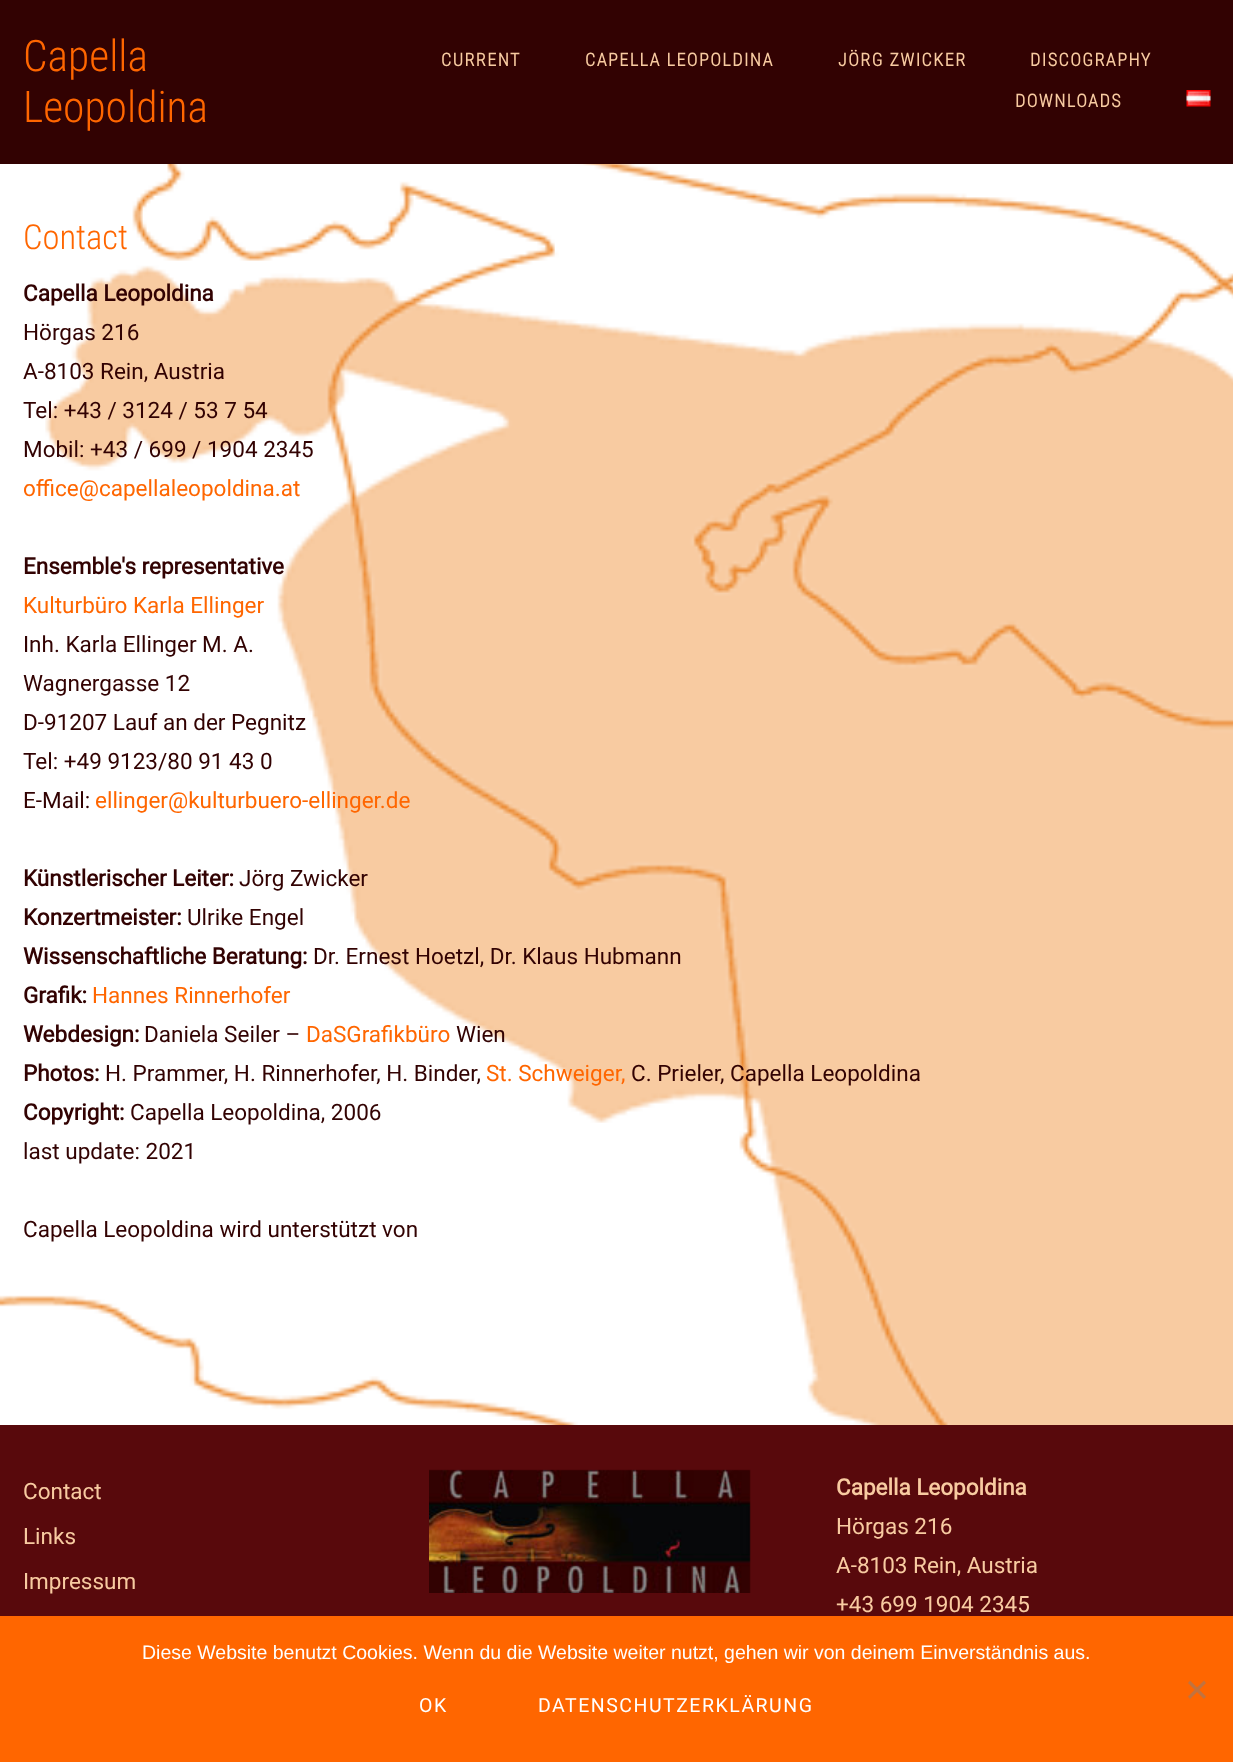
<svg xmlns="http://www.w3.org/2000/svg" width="1233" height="1762">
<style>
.a{font:300 43.5px Roboto Condensed;fill:#f60}
.b{font:bold 18px Roboto Condensed;letter-spacing:1.5px;fill:#f8cba1}
.c{font:300 34.5px Roboto Condensed;fill:#f60}
.d{font:bold 22.5px Roboto;fill:#320202}
.e{font:22.5px Roboto;fill:#320202}
.f{font:22.5px Roboto;fill:#f60}
.g{font:22.5px Roboto;fill:#f8cba1}
.h{font:bold 22.5px Roboto;fill:#f8cba1}
.i{font:19.5px Liberation Sans;fill:#fff}
.j{font:19.5px Roboto;letter-spacing:1.5px;fill:#fff}
</style>
<rect width="100%" height="100%" fill="#58090c"/>
<path fill="#320202" d="M0 0h1233v164H0z"/>
<image href="1.png" x="1186" y="90" width="25" height="17"/>
<image href="2.png" x="0" y="164" width="1233" height="1261"/>
<image href="3.png" x="429" y="1469" width="322" height="124"/>
<path fill="#f60" d="M0 1616h1233v146H0z"/>
<path fill="#c07340" d="M1204 1680.5l2 2.5l-16 16l-2-2.5z"/>
<path fill="#c07340" d="M1188 1683l2-2.5l16 16l-2 2.5z"/>
<text class="a" x="23" y="71">Capella</text>
<text class="a" x="23" y="122">Leopoldina</text>
<text class="b" x="441" y="66">CURRENT</text>
<text class="b" x="585" y="66">CAPELLA LEOPOLDINA</text>
<text class="b" x="838" y="66">JÖRG ZWICKER</text>
<text class="b" x="1030" y="66">DISCOGRAPHY</text>
<text class="b" x="1015" y="107">DOWNLOADS</text>
<text class="c" x="23" y="249">Contact</text>
<text class="d" x="23" y="301">Capella Leopoldina</text>
<text class="e" x="23" y="340">Hörgas 216</text>
<text class="e" x="23" y="379">A-8103 Rein, Austria</text>
<text class="e" x="23" y="418">Tel: +43 / 3124 / 53 7 54</text>
<text class="e" x="23" y="457">Mobil: +43 / 699 / 1904 2345</text>
<text class="f" x="23" y="496">office@capellaleopoldina.at</text>
<text class="d" x="23" y="574">Ensemble's representative</text>
<text class="f" x="23" y="613">Kulturbüro Karla Ellinger</text>
<text class="e" x="23" y="652">Inh. Karla Ellinger M. A.</text>
<text class="e" x="23" y="691">Wagnergasse 12</text>
<text class="e" x="23" y="730">D-91207 Lauf an der Pegnitz</text>
<text class="e" x="23" y="769">Tel: +49 9123/80 91 43 0</text>
<text class="e" x="23" y="808">E-Mail:</text>
<text class="f" x="95" y="808">ellinger@kulturbuero-ellinger.de</text>
<text class="d" x="23" y="886">Künstlerischer Leiter:</text>
<text class="e" x="239" y="886">Jörg Zwicker</text>
<text class="d" x="23" y="925">Konzertmeister:</text>
<text class="e" x="187" y="925">Ulrike Engel</text>
<text class="d" x="23" y="964">Wissenschaftliche Beratung:</text>
<text class="e" x="313" y="964">Dr. Ernest Hoetzl, Dr. Klaus Hubmann</text>
<text class="d" x="23" y="1003">Grafik:</text>
<text class="f" x="92" y="1003">Hannes Rinnerhofer</text>
<text class="d" x="23" y="1042">Webdesign:</text>
<text class="e" x="144" y="1042">Daniela Seiler –</text>
<text class="f" x="306" y="1042">DaSGrafikbüro</text>
<text class="e" x="456" y="1042">Wien</text>
<text class="d" x="23" y="1081">Photos:</text>
<text class="e" x="105" y="1081">H. Prammer, H. Rinnerhofer, H. Binder,</text>
<text class="f" x="486" y="1081">St. Schweiger,</text>
<text class="e" x="631" y="1081">C. Prieler, Capella Leopoldina</text>
<text class="d" x="23" y="1120">Copyright:</text>
<text class="e" x="130" y="1120">Capella Leopoldina, 2006</text>
<text class="e" x="23" y="1159">last update: 2021</text>
<text class="e" x="23" y="1237">Capella Leopoldina wird unterstützt von</text>
<text class="g" x="23" y="1499">Contact</text>
<text class="g" x="23" y="1544">Links</text>
<text class="g" x="23" y="1589">Impressum</text>
<text class="h" x="836" y="1495">Capella Leopoldina</text>
<text class="g" x="836" y="1534">Hörgas 216</text>
<text class="g" x="836" y="1573">A-8103 Rein, Austria</text>
<text class="g" x="836" y="1612">+43 699 1904 2345</text>
<text class="i" x="142" y="1659">Diese Website benutzt Cookies. Wenn du die Website weiter nutzt, gehen wir von deinem Einverständnis aus.</text>
<text class="j" x="419" y="1712">OK</text>
<text class="j" x="538" y="1712">DATENSCHUTZERKLÄRUNG</text>
</svg>
